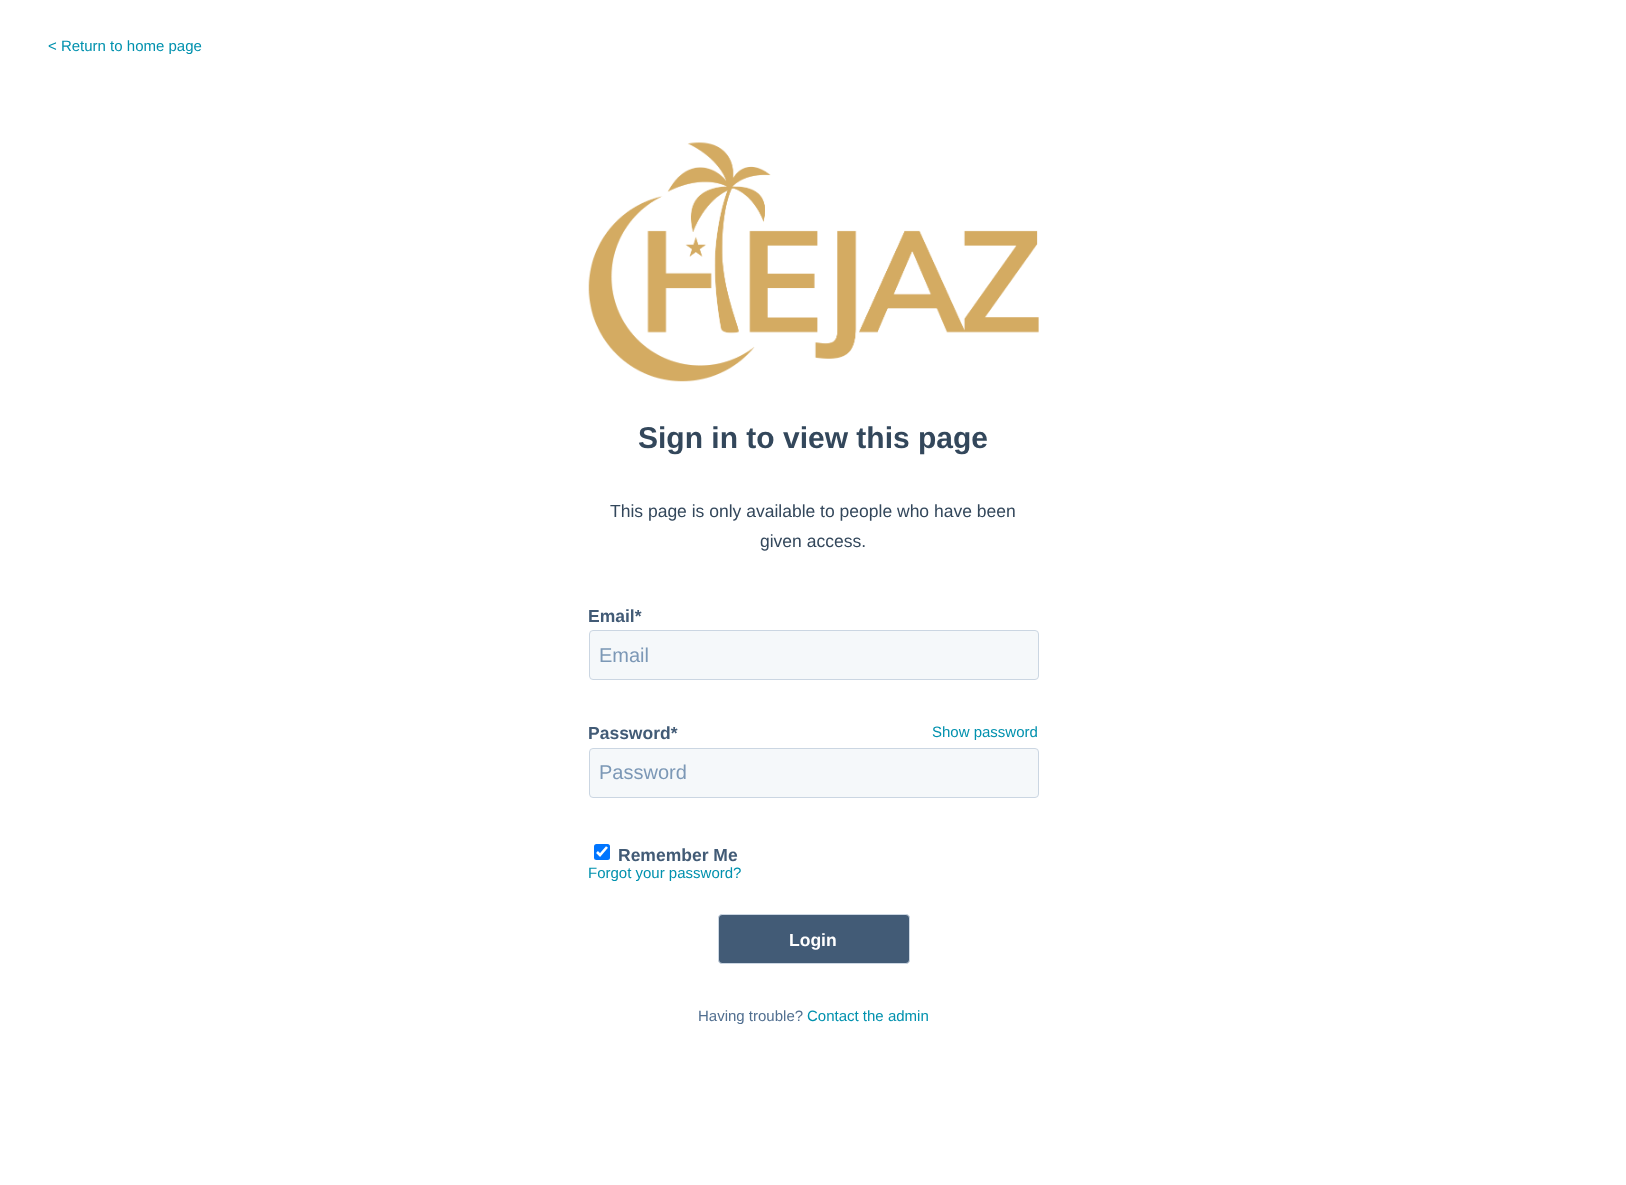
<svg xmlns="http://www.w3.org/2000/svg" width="1626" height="1185">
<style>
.a{font:15px Liberation Sans;fill:#0091ae}
.b{font:bold 30px Liberation Sans;fill:#33475b}
.c{font:17.5px Liberation Sans;fill:#33475b}
.d{font:bold 17.5px Liberation Sans;fill:#425b76}
.e{font:20px Liberation Sans;fill:#7c98b6}
.f{font:bold 17.5px Liberation Sans;fill:#fff}
.g{font:15px Liberation Sans;fill:#516f90}
</style>
<rect width="100%" height="100%" fill="#fff"/>
<image href="1.png" x="588" y="142" width="451" height="240"/>
<rect fill="#f5f8fa" stroke="#cbd6e2" x="589.5" y="630.5" width="449" height="49" rx="3.5"/>
<rect fill="#f5f8fa" stroke="#cbd6e2" x="589.5" y="748.5" width="449" height="49" rx="3.5"/>
<rect fill="#0075ff" x="594" y="844" width="16" height="16" rx="2.5"/>
<path fill="none" stroke="#fff" stroke-width="2.6" d="M597 852l3 3l7-8"/>
<rect fill="#425b76" stroke="#cbd6e2" x="718.5" y="914.5" width="191" height="49" rx="3.5"/>
<text class="a" x="48" y="51">&lt; Return to home page</text>
<text class="b" x="638" y="448">Sign in to view this page</text>
<text class="c" x="610" y="517">This page is only available to people who have been</text>
<text class="c" x="760" y="547">given access.</text>
<text class="d" x="588" y="622">Email*</text>
<text class="e" x="599" y="662">Email</text>
<text class="d" x="588" y="739">Password*</text>
<text class="a" x="932" y="737">Show password</text>
<text class="e" x="599" y="779">Password</text>
<text class="d" x="618" y="861">Remember Me</text>
<text class="a" x="588" y="878">Forgot your password?</text>
<text class="f" x="789" y="946">Login</text>
<text class="g" x="698" y="1021">Having trouble?</text>
<text class="a" x="807" y="1021">Contact the admin</text>
</svg>
